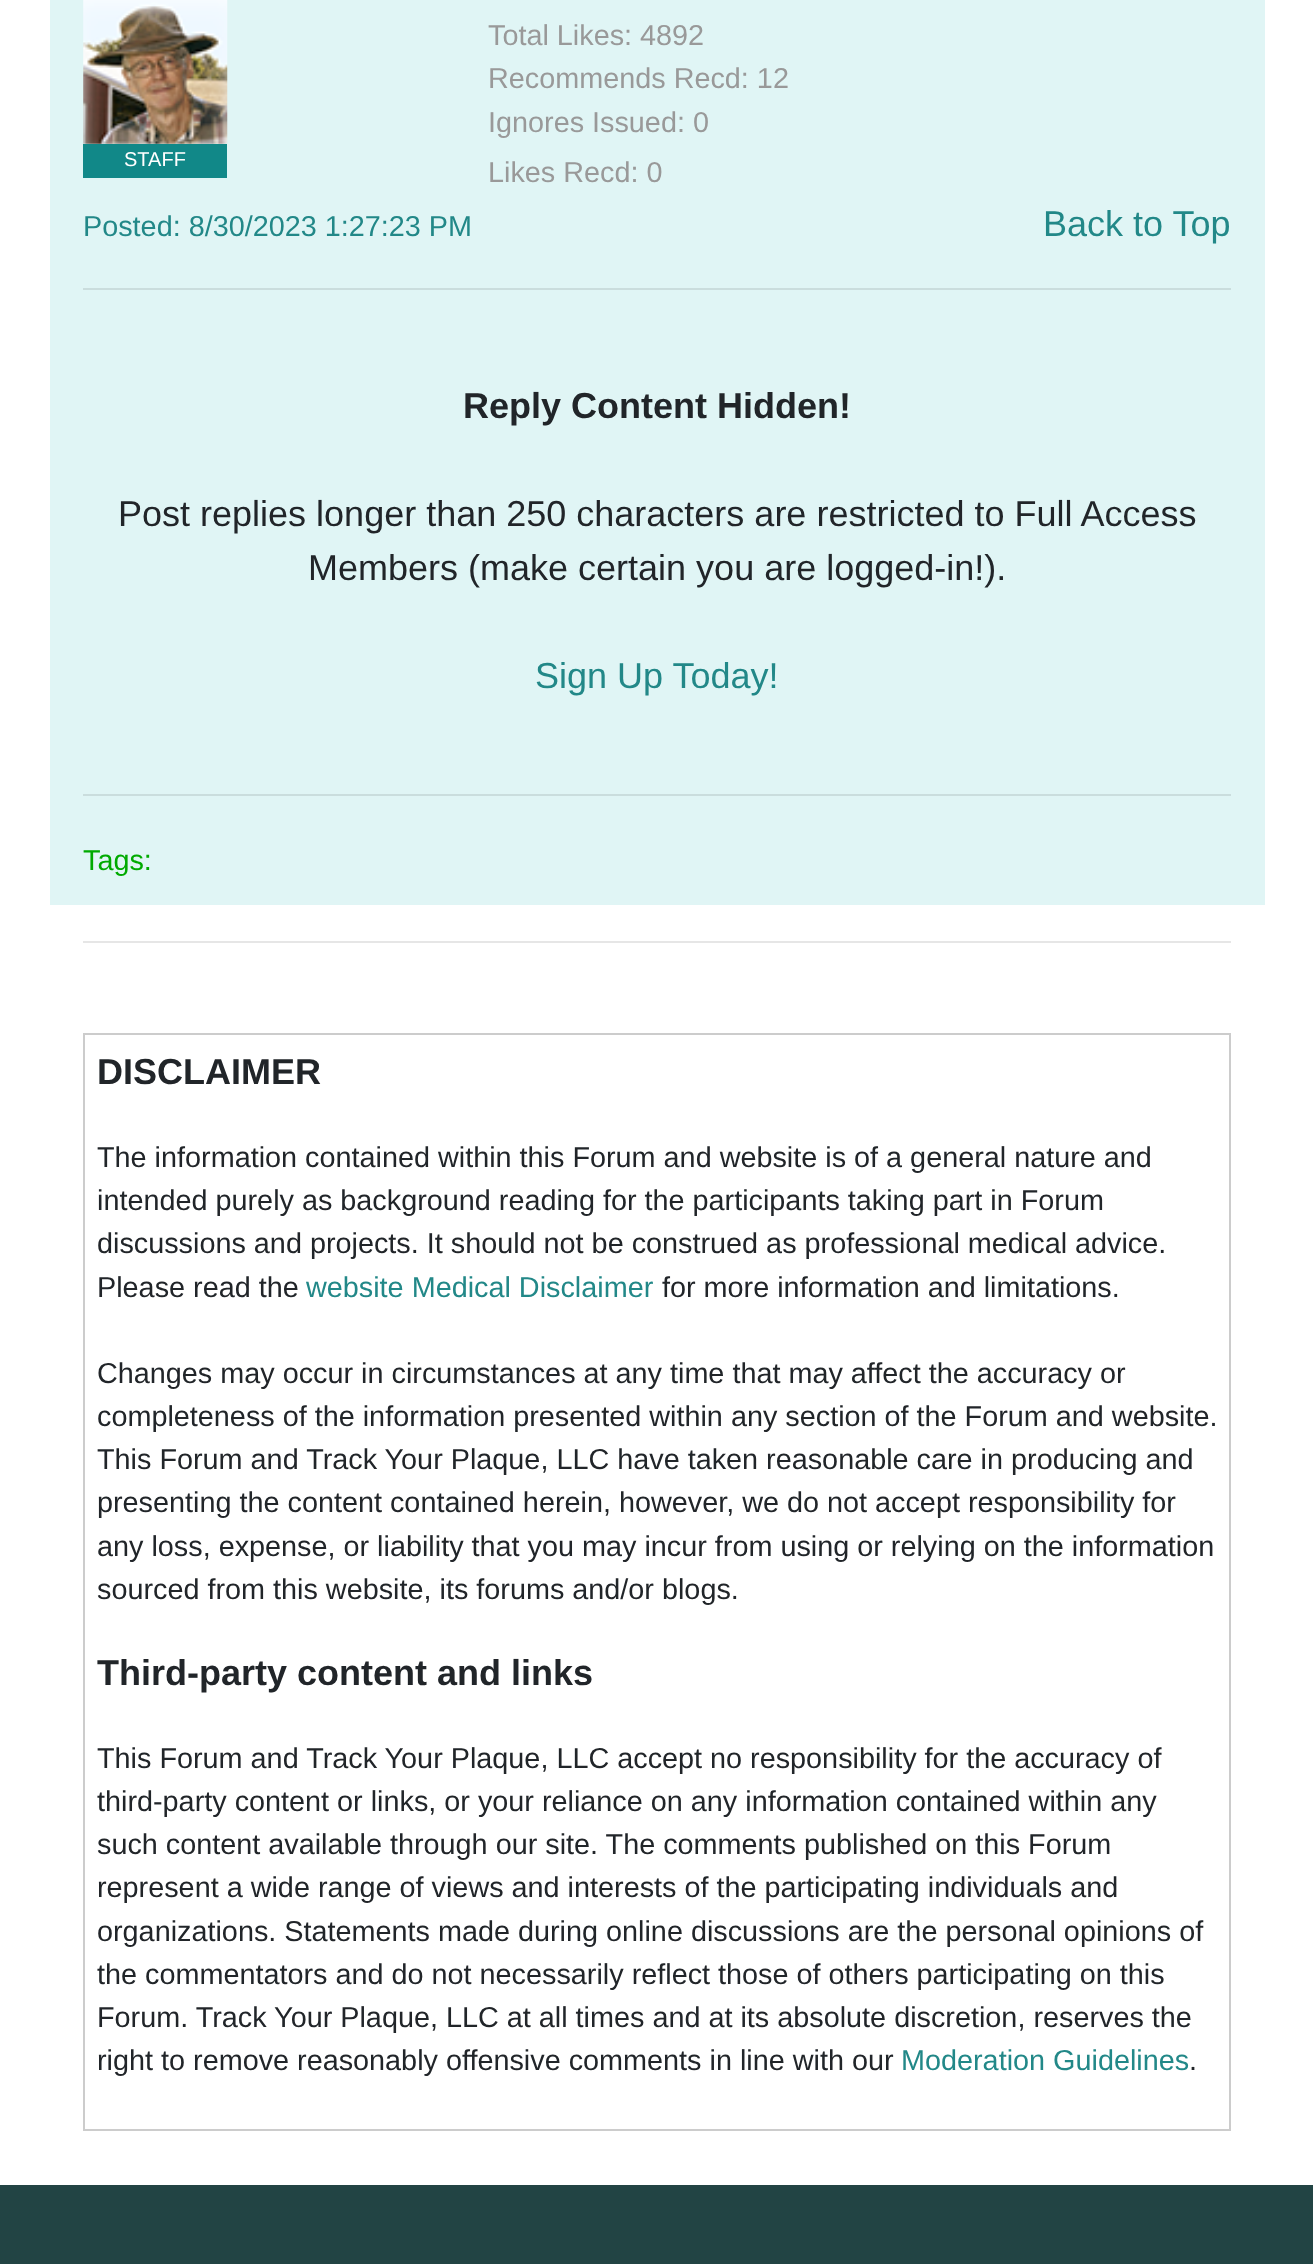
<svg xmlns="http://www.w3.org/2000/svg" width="1313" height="2264">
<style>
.a{font:20px Liberation Sans;fill:#fff}
.b{font:28.8px Liberation Sans;fill:#999}
.c{font:28.8px Liberation Sans;fill:#288}
.d{font:36px Liberation Sans;fill:#288}
.e{font:bold 36px Liberation Sans;fill:#212529}
.f{font:36px Liberation Sans;fill:#212529}
.g{font:28.8px Liberation Sans;fill:#0a0}
.h{font:28.8px Liberation Sans;fill:#212529}
</style>
<rect width="100%" height="100%" fill="#fff"/>
<path fill="#e0f5f5" d="M50 0h1215v905H50z"/>
<image href="1.png" x="83" y="0" width="145" height="144"/>
<path fill="#188" d="M83 144h144v34H83z"/>
<path fill="#cadddd" d="M83 288h1148v2H83z"/>
<path fill="#cadddd" d="M83 794h1148v2H83z"/>
<path fill="#e6e6e6" d="M83 941h1148v2H83z"/>
<path fill="none" stroke="#ccc" stroke-width="2" d="M84 1034h1146v1096H84z"/>
<path fill="#244" d="M0 2185h1313v79H0z"/>
<text class="a" x="124" y="166">STAFF</text>
<text class="b" x="488" y="45">Total Likes: 4892</text>
<text class="b" x="488" y="88">Recommends Recd: 12</text>
<text class="b" x="488" y="132">Ignores Issued: 0</text>
<text class="b" x="488" y="182">Likes Recd: 0</text>
<text class="c" x="83" y="236">Posted: 8/30/2023 1:27:23 PM</text>
<text class="d" x="1043" y="236">Back to Top</text>
<text class="e" x="463" y="418">Reply Content Hidden!</text>
<text class="f" x="118" y="526">Post replies longer than 250 characters are restricted to Full Access</text>
<text class="f" x="308" y="580">Members (make certain you are logged-in!).</text>
<text class="d" x="535" y="688">Sign Up Today!</text>
<text class="g" x="83" y="870">Tags:</text>
<text class="e" x="97" y="1084">DISCLAIMER</text>
<text class="h" x="97" y="1167">The information contained within this Forum and website is of a general nature and</text>
<text class="h" x="97" y="1210">intended purely as background reading for the participants taking part in Forum</text>
<text class="h" x="97" y="1253">discussions and projects. It should not be construed as professional medical advice.</text>
<text class="h" x="97" y="1297">Please read the</text>
<text class="c" x="306" y="1297">website Medical Disclaimer</text>
<text class="h" x="662" y="1297">for more information and limitations.</text>
<text class="h" x="97" y="1383">Changes may occur in circumstances at any time that may affect the accuracy or</text>
<text class="h" x="97" y="1426">completeness of the information presented within any section of the Forum and website.</text>
<text class="h" x="97" y="1469">This Forum and Track Your Plaque, LLC have taken reasonable care in producing and</text>
<text class="h" x="97" y="1512">presenting the content contained herein, however, we do not accept responsibility for</text>
<text class="h" x="97" y="1556">any loss, expense, or liability that you may incur from using or relying on the information</text>
<text class="h" x="97" y="1599">sourced from this website, its forums and/or blogs.</text>
<text class="e" x="97" y="1685">Third-party content and links</text>
<text class="h" x="97" y="1768">This Forum and Track Your Plaque, LLC accept no responsibility for the accuracy of</text>
<text class="h" x="97" y="1811">third-party content or links, or your reliance on any information contained within any</text>
<text class="h" x="97" y="1854">such content available through our site. The comments published on this Forum</text>
<text class="h" x="97" y="1897">represent a wide range of views and interests of the participating individuals and</text>
<text class="h" x="97" y="1941">organizations. Statements made during online discussions are the personal opinions of</text>
<text class="h" x="97" y="1984">the commentators and do not necessarily reflect those of others participating on this</text>
<text class="h" x="97" y="2027">Forum. Track Your Plaque, LLC at all times and at its absolute discretion, reserves the</text>
<text class="h" x="97" y="2070">right to remove reasonably offensive comments in line with our</text>
<text class="c" x="901" y="2070">Moderation Guidelines</text>
<text class="h" x="1189" y="2070">.</text>
</svg>
